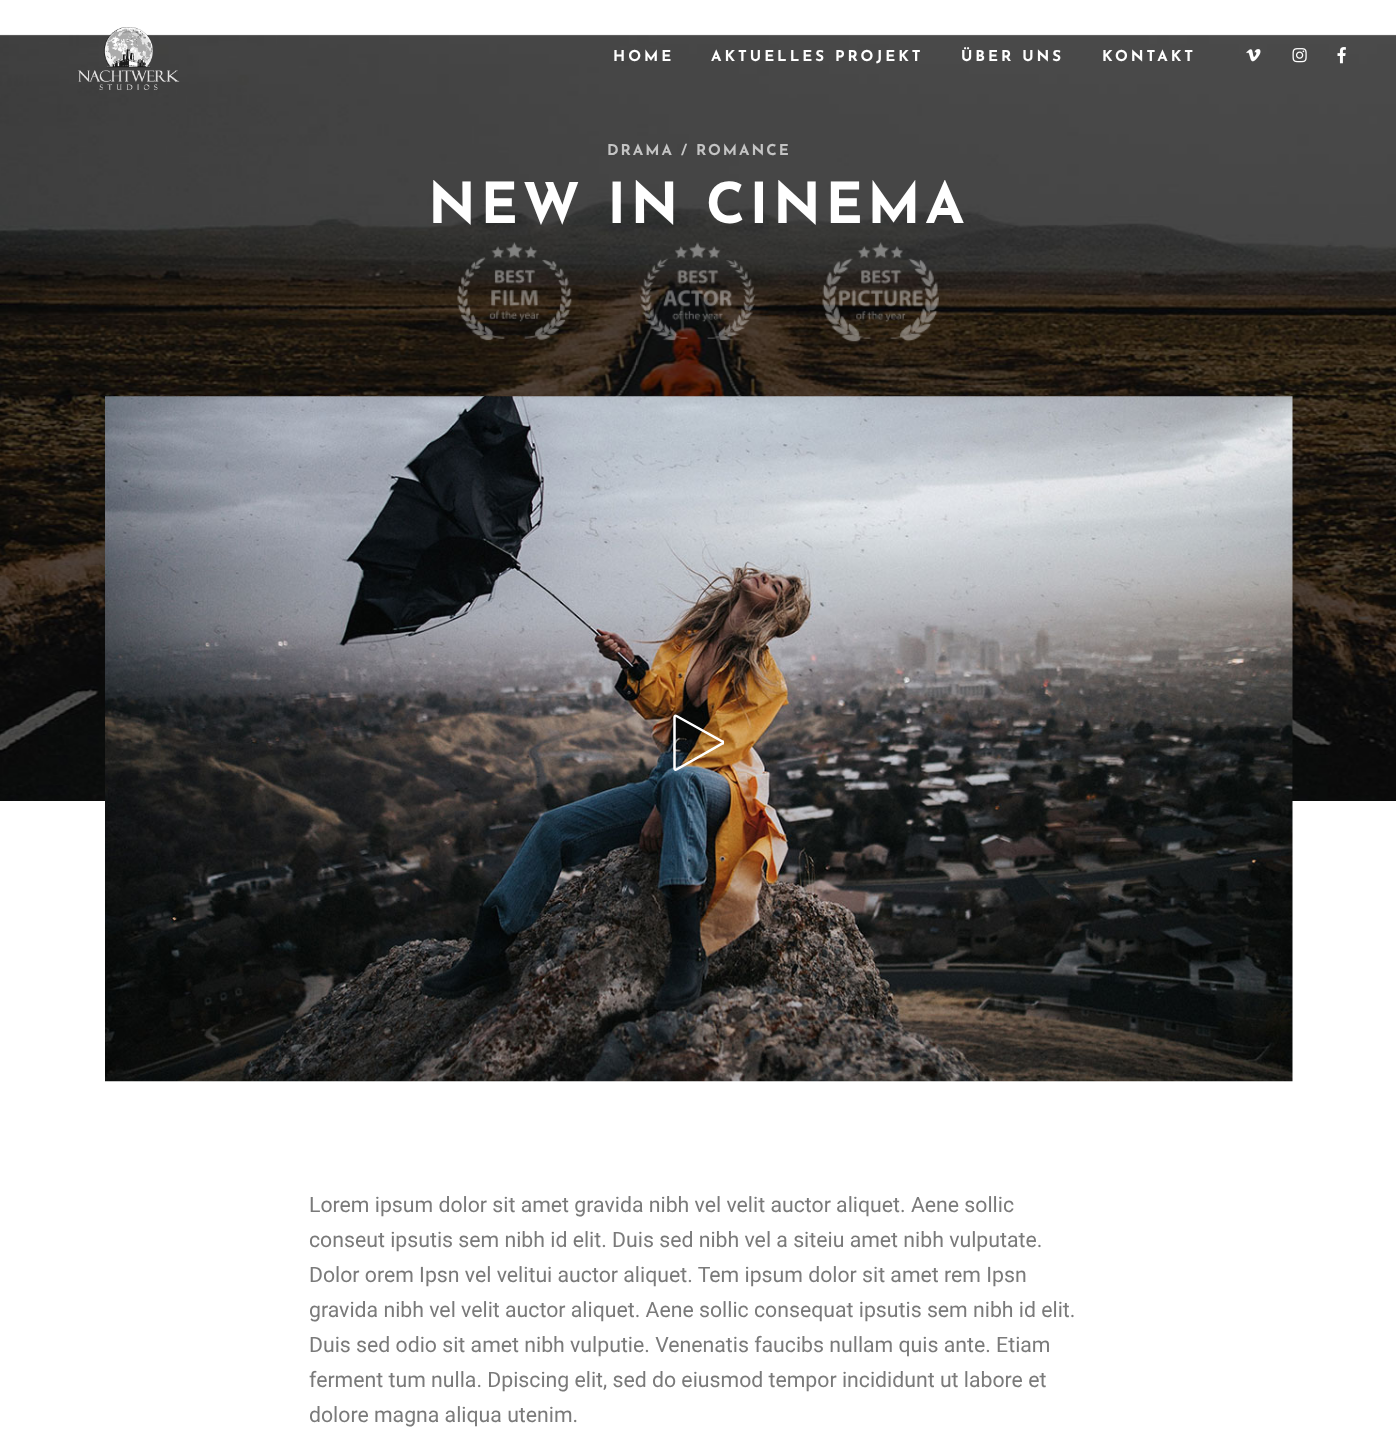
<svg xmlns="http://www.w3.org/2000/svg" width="1396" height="1450">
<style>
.a{font:bold 15px Josefin Sans;letter-spacing:3px;fill:#fff}
.b{font:bold 15px Josefin Sans;letter-spacing:2px;fill:#c4c4c4}
.c{font:bold 56.25px Josefin Sans;letter-spacing:4.5px;fill:#fff}
.d{font:21.25px Roboto;fill:#7a7a7a}
</style>
<defs>
<clipPath id="clip1"><path d="M673 714h51v57H673z"/></clipPath>
</defs>
<rect width="100%" height="100%" fill="#fff"/>
<image href="5.png" x="0" y="34" width="1396" height="767"/>
<image href="1.png" x="77" y="27" width="103" height="63"/>
<image href="2.png" x="1246" y="49" width="15" height="13"/>
<image href="3.png" x="1292" y="48" width="15" height="15"/>
<image href="4.png" x="1337" y="47" width="9" height="17"/>
<image href="6.png" x="457" y="242" width="482" height="100"/>
<image href="7.png" x="105" y="396" width="1188" height="686"/>
<g clip-path="url(#clip1)">
<path fill="none" stroke="#fff" stroke-width="2.5" d="M676.5 769.5c-1 .5-2 0-2-1v-51.5c0-1 1-1.5 2-1l46 25.5c1.5 .5 1.5 1.5 0 2z"/>
</g>
<text class="a" x="613" y="61">HOME</text>
<text class="a" x="711" y="61">AKTUELLES PROJEKT</text>
<text class="a" x="961" y="61">ÜBER UNS</text>
<text class="a" x="1102" y="61">KONTAKT</text>
<text class="b" x="607" y="155">DRAMA / ROMANCE</text>
<text class="c" x="428" y="223">NEW IN CINEMA</text>
<text class="d" x="309" y="1212">Lorem ipsum dolor sit amet gravida nibh vel velit auctor aliquet. Aene sollic</text>
<text class="d" x="309" y="1247">conseut ipsutis sem nibh id elit. Duis sed nibh vel a siteiu amet nibh vulputate.</text>
<text class="d" x="309" y="1282">Dolor orem Ipsn vel velitui auctor aliquet. Tem ipsum dolor sit amet rem Ipsn</text>
<text class="d" x="309" y="1317">gravida nibh vel velit auctor aliquet. Aene sollic consequat ipsutis sem nibh id elit.</text>
<text class="d" x="309" y="1352">Duis sed odio sit amet nibh vulputie. Venenatis faucibs nullam quis ante. Etiam</text>
<text class="d" x="309" y="1387">ferment tum nulla. Dpiscing elit, sed do eiusmod tempor incididunt ut labore et</text>
<text class="d" x="309" y="1422">dolore magna aliqua utenim.</text>
</svg>
